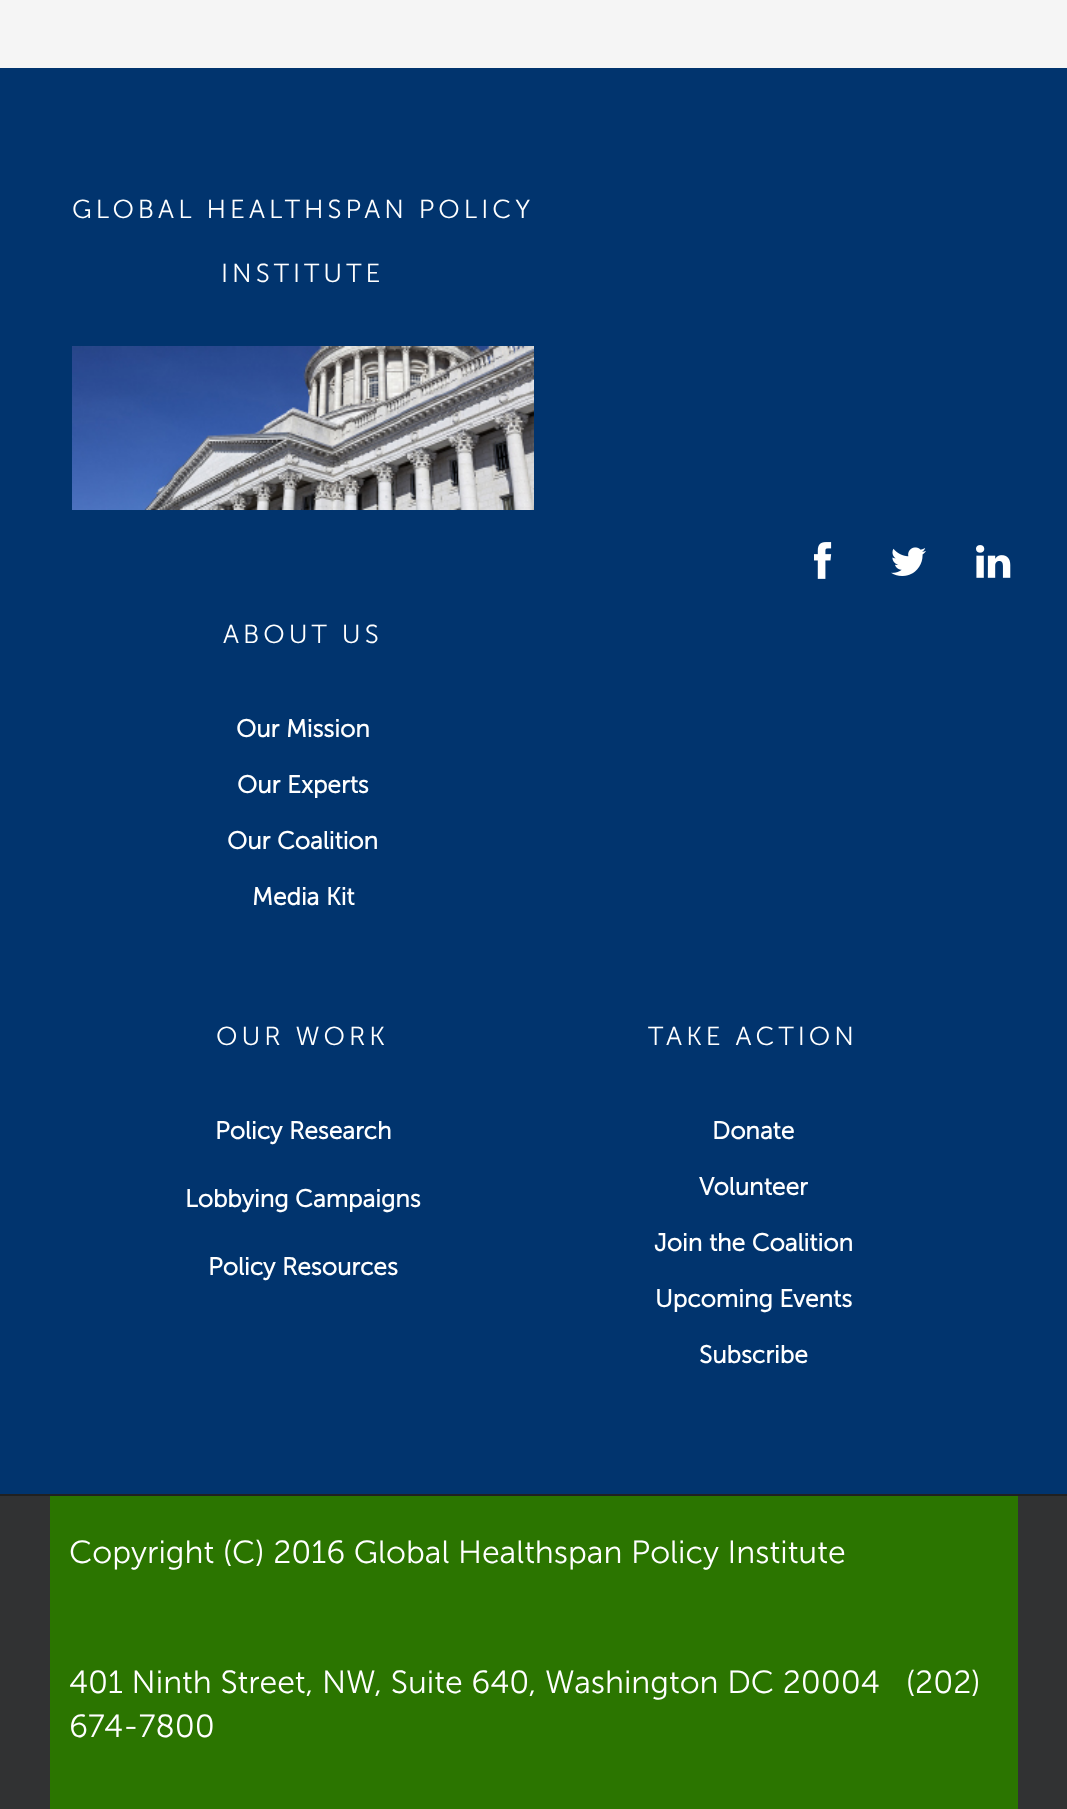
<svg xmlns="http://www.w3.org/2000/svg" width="1067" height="1809">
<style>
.a{font:300 26px Museo Sans;letter-spacing:4px;fill:#fff}
.b{font:bold 24.5px Museo Sans;fill:#fff}
.c{font:300 32px Museo Sans;fill:#fff}
</style>
<rect width="100%" height="100%" fill="#f5f5f5"/>
<path fill="#313233" d="M0 1496h1067v313H0z"/>
<path fill="#01346e" d="M0 68h1067v1426H0z"/>
<path fill="#212121" d="M0 1494h1067v2H0z"/>
<image href="1.png" x="72" y="346" width="462" height="164"/>
<image href="2.png" x="814" y="542" width="18" height="37"/>
<image href="3.png" x="891" y="547" width="35" height="29"/>
<image href="4.png" x="976" y="545" width="35" height="33"/>
<path fill="#2b7500" d="M50 1496h968v313H50z"/>
<text class="a" x="72" y="218">GLOBAL HEALTHSPAN POLICY</text>
<text class="a" x="221" y="282">INSTITUTE</text>
<text class="a" x="223" y="643">ABOUT US</text>
<text class="b" x="236" y="737">Our Mission</text>
<text class="b" x="237" y="793">Our Experts</text>
<text class="b" x="227" y="849">Our Coalition</text>
<text class="b" x="252" y="905">Media Kit</text>
<text class="a" x="216" y="1045">OUR WORK</text>
<text class="b" x="215" y="1139">Policy Research</text>
<text class="b" x="185" y="1207">Lobbying Campaigns</text>
<text class="b" x="208" y="1275">Policy Resources</text>
<text class="a" x="648" y="1045">TAKE ACTION</text>
<text class="b" x="712" y="1139">Donate</text>
<text class="b" x="699" y="1195">Volunteer</text>
<text class="b" x="654" y="1251">Join the Coalition</text>
<text class="b" x="655" y="1307">Upcoming Events</text>
<text class="b" x="699" y="1363">Subscribe</text>
<text class="c" x="69" y="1563">Copyright (C) 2016 Global Healthspan Policy Institute</text>
<text class="c" xml:space="preserve" x="69" y="1693">401 Ninth Street, NW, Suite 640, Washington DC 20004   (202)</text>
<text class="c" x="69" y="1737">674-7800</text>
</svg>
